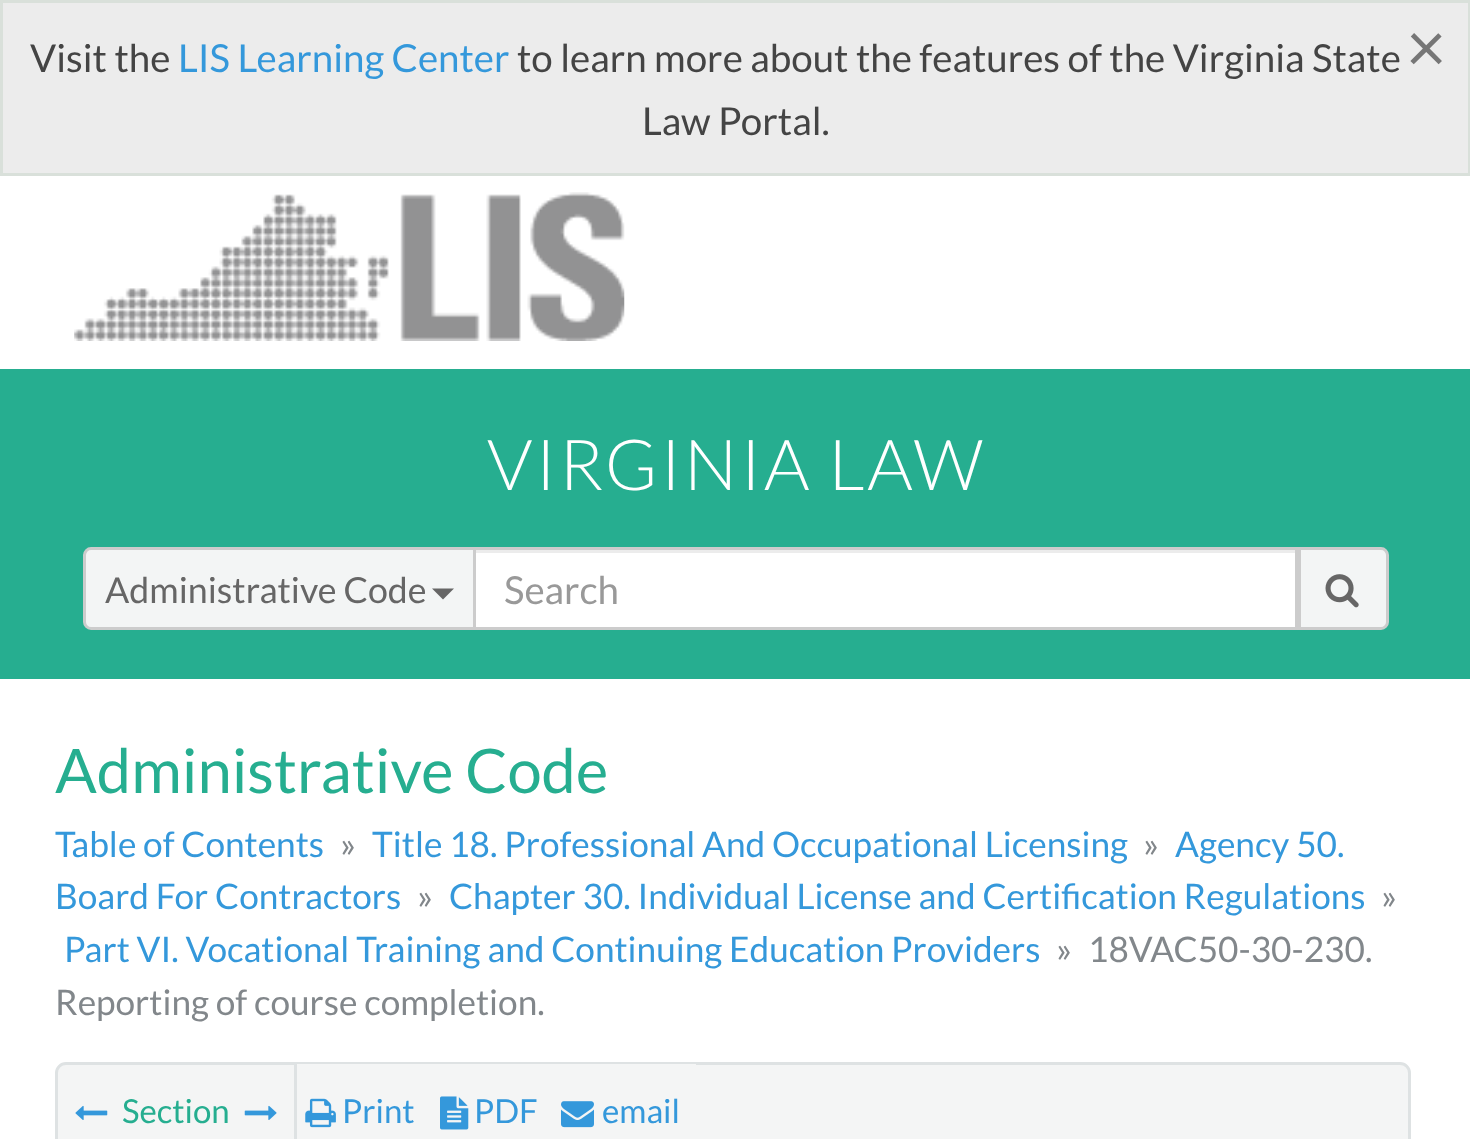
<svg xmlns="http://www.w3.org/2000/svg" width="1470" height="1139">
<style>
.a{font:38.5px Lato;fill:#444}
.b{font:38.5px Lato;fill:#3498db}
.c{font:70px Lato;fill:#767676}
.d{font:300 70.5px Lato;letter-spacing:2.75px;fill:#fff}
.e{font:35.75px Lato;fill:#666}
.f{font:38.5px Lato;fill:#999}
.g{font:61.5px Lato;fill:#26ae90}
.h{font:35.2px Lato;fill:#3498db}
.i{font:35.2px Lato;fill:#82878b}
.j{font:33px Lato;fill:#26ae90}
.k{font:33px Lato;fill:#3498db}
</style>
<rect width="100%" height="100%" fill="#fff"/>
<path fill="#ececec" stroke="#d9e0da" stroke-width="3" d="M1.5 1.5h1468v173H1.5z"/>
<image href="1.png" x="74" y="192" width="551" height="149"/>
<path fill="#26ae90" d="M0 369h1470v310H0z"/>
<path fill="#fff" d="M476 553h819v74H476z"/>
<path fill="#ececec" d="M476 550h819v3H476z"/>
<path fill="none" stroke="#ccc" stroke-width="3" d="M474.5 548.5h822v80H474.5z"/>
<path fill="#f3f5f5" stroke="#ccc" stroke-width="3" d="M91 548.5h383.5v80h-383.5c-3.5 0-6.5-3-6.5-6.5v-67c0-3.5 3-6.5 6.5-6.5z"/>
<path fill="#666" d="M432 588.5h22l-11 11z"/>
<path fill="#f3f5f5" stroke="#ccc" stroke-width="3" d="M1299.5 548.5h81.5c3.5 0 6.5 3 6.5 6.5v67c0 3.5-3 6.5-6.5 6.5h-81.5z"/>
<image href="2.png" x="1325" y="574" width="34" height="34"/>
<rect fill="#f4f5f5" stroke="#dee2e3" stroke-width="3" x="56.5" y="1063.5" width="1353" height="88" rx="9.5"/>
<path fill="#dee2e3" d="M294 1064h3v75H294z"/>
<image href="3.png" x="75" y="1105" width="33" height="15"/>
<image href="4.png" x="244" y="1105" width="33" height="15"/>
<path fill="#f4f5f5" d="M297 1064h399v1H297z"/>
<image href="5.png" x="305" y="1098" width="31" height="30"/>
<image href="6.png" x="440" y="1096" width="29" height="34"/>
<image href="7.png" x="561" y="1101" width="33" height="27"/>
<text class="a" x="30" y="72">Visit the</text>
<text class="b" x="178" y="72">LIS Learning Center</text>
<text class="a" x="517" y="72">to learn more about the features of the Virginia State</text>
<text class="c" x="1406" y="72">×</text>
<text class="a" x="642" y="135">Law Portal.</text>
<text class="d" x="487" y="490">VIRGINIA LAW</text>
<text class="e" x="105" y="603">Administrative Code</text>
<text class="f" x="504" y="604">Search</text>
<text class="g" x="55" y="793">Administrative Code</text>
<text class="h" x="55" y="857">Table of Contents</text>
<text class="i" x="340" y="857">»</text>
<text class="h" x="372" y="857">Title 18. Professional And Occupational Licensing</text>
<text class="i" x="1143" y="857">»</text>
<text class="h" x="1175" y="857">Agency 50.</text>
<text class="h" x="55" y="909">Board For Contractors</text>
<text class="i" x="417" y="909">»</text>
<text class="h" x="449" y="909">Chapter 30. Individual License and Certification Regulations</text>
<text class="i" x="1381" y="909">»</text>
<text class="h" x="64" y="962">Part VI. Vocational Training and Continuing Education Providers</text>
<text class="i" x="1056" y="962">»</text>
<text class="i" x="1088" y="962">18VAC50-30-230.</text>
<text class="i" x="55" y="1015">Reporting of course completion.</text>
<text class="j" x="122" y="1123">Section</text>
<text class="k" x="342" y="1123">Print</text>
<text class="k" x="474" y="1123">PDF</text>
<text class="k" x="602" y="1123">email</text>
</svg>
